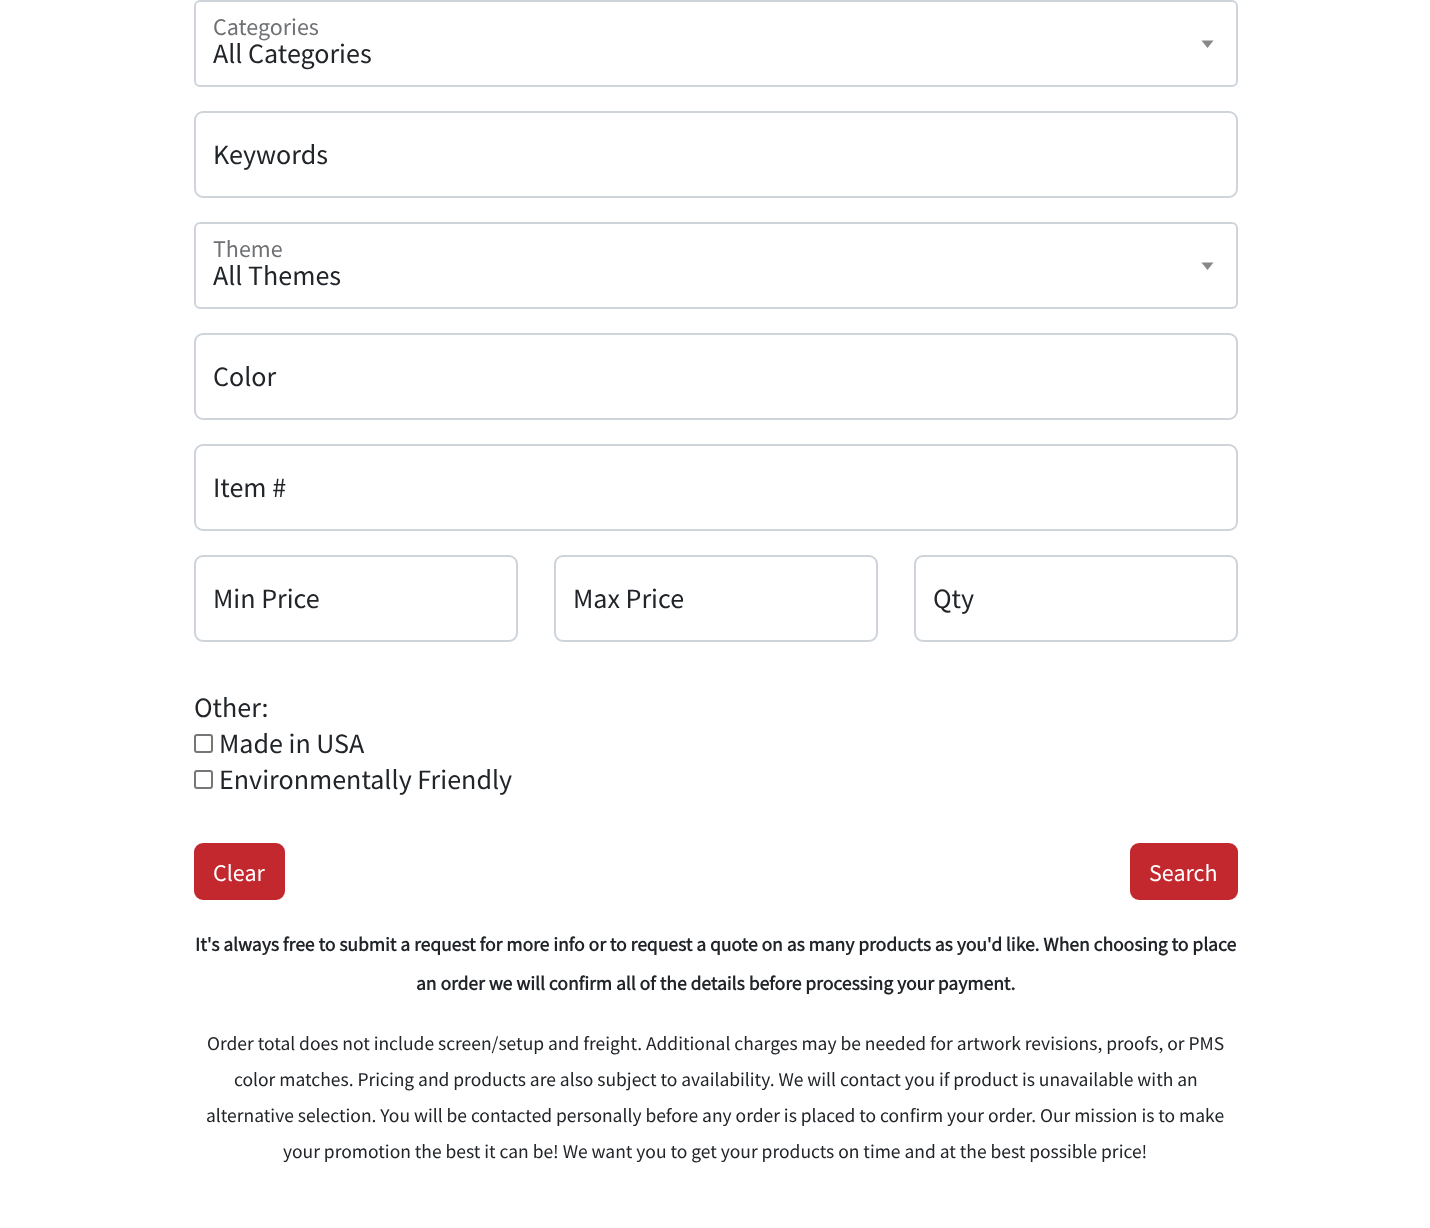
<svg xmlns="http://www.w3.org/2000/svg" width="1430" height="1228">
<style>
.a{font:24px Source Sans Pro;fill:#6f7174}
.b{font:28px Source Sans Pro;fill:#212529}
.c{font:24px Source Sans Pro;fill:#fff}
.d{font:bold 19.5px Source Sans Pro;fill:#212529}
.e{font:19.5px Source Sans Pro;fill:#212529}
</style>
<rect width="100%" height="100%" fill="#fff"/>
<rect fill="none" stroke="#ced4da" stroke-width="2" x="195" y="1" width="1042" height="85" rx="5"/>
<path fill="#888" d="M1201.5 40.5h12l-6 7.5z"/>
<rect fill="none" stroke="#ced4da" stroke-width="2" x="195" y="112" width="1042" height="85" rx="8"/>
<rect fill="none" stroke="#ced4da" stroke-width="2" x="195" y="223" width="1042" height="85" rx="5"/>
<path fill="#888" d="M1201.5 262.5h12l-6 7.5z"/>
<rect fill="none" stroke="#ced4da" stroke-width="2" x="195" y="334" width="1042" height="85" rx="8"/>
<rect fill="none" stroke="#ced4da" stroke-width="2" x="195" y="445" width="1042" height="85" rx="8"/>
<rect fill="none" stroke="#ced4da" stroke-width="2" x="195" y="556" width="322" height="85" rx="8"/>
<rect fill="none" stroke="#ced4da" stroke-width="2" x="555" y="556" width="322" height="85" rx="8"/>
<rect fill="none" stroke="#ced4da" stroke-width="2" x="915" y="556" width="322" height="85" rx="8"/>
<rect fill="none" stroke="#767676" stroke-width="2" x="195" y="735" width="17" height="17" rx="2"/>
<rect fill="none" stroke="#767676" stroke-width="2" x="195" y="771" width="17" height="17" rx="2"/>
<rect fill="#c3282e" stroke="#c3282e" stroke-width="2" x="195" y="844" width="89" height="55" rx="8"/>
<rect fill="#c3282e" stroke="#c3282e" stroke-width="2" x="1131" y="844" width="106" height="55" rx="8"/>
<text class="a" x="213" y="35">Categories</text>
<text class="b" x="213" y="63">All Categories</text>
<text class="b" x="213" y="164">Keywords</text>
<text class="a" x="213" y="257">Theme</text>
<text class="b" x="213" y="285">All Themes</text>
<text class="b" x="213" y="386">Color</text>
<text class="b" x="213" y="497">Item #</text>
<text class="b" x="213" y="608">Min Price</text>
<text class="b" x="573" y="608">Max Price</text>
<text class="b" x="933" y="608">Qty</text>
<text class="b" x="194" y="717">Other:</text>
<text class="b" x="219" y="753">Made in USA</text>
<text class="b" x="219" y="789">Environmentally Friendly</text>
<text class="c" x="213" y="881">Clear</text>
<text class="c" x="1149" y="881">Search</text>
<text class="d" x="195" y="951">It's always free to submit a request for more info or to request a quote on as many products as you'd like. When choosing to place</text>
<text class="d" x="416" y="990">an order we will confirm all of the details before processing your payment.</text>
<text class="e" x="207" y="1050">Order total does not include screen/setup and freight. Additional charges may be needed for artwork revisions, proofs, or PMS</text>
<text class="e" x="234" y="1086">color matches. Pricing and products are also subject to availability. We will contact you if product is unavailable with an</text>
<text class="e" x="206" y="1122">alternative selection. You will be contacted personally before any order is placed to confirm your order. Our mission is to make</text>
<text class="e" x="283" y="1158">your promotion the best it can be! We want you to get your products on time and at the best possible price!</text>
</svg>
